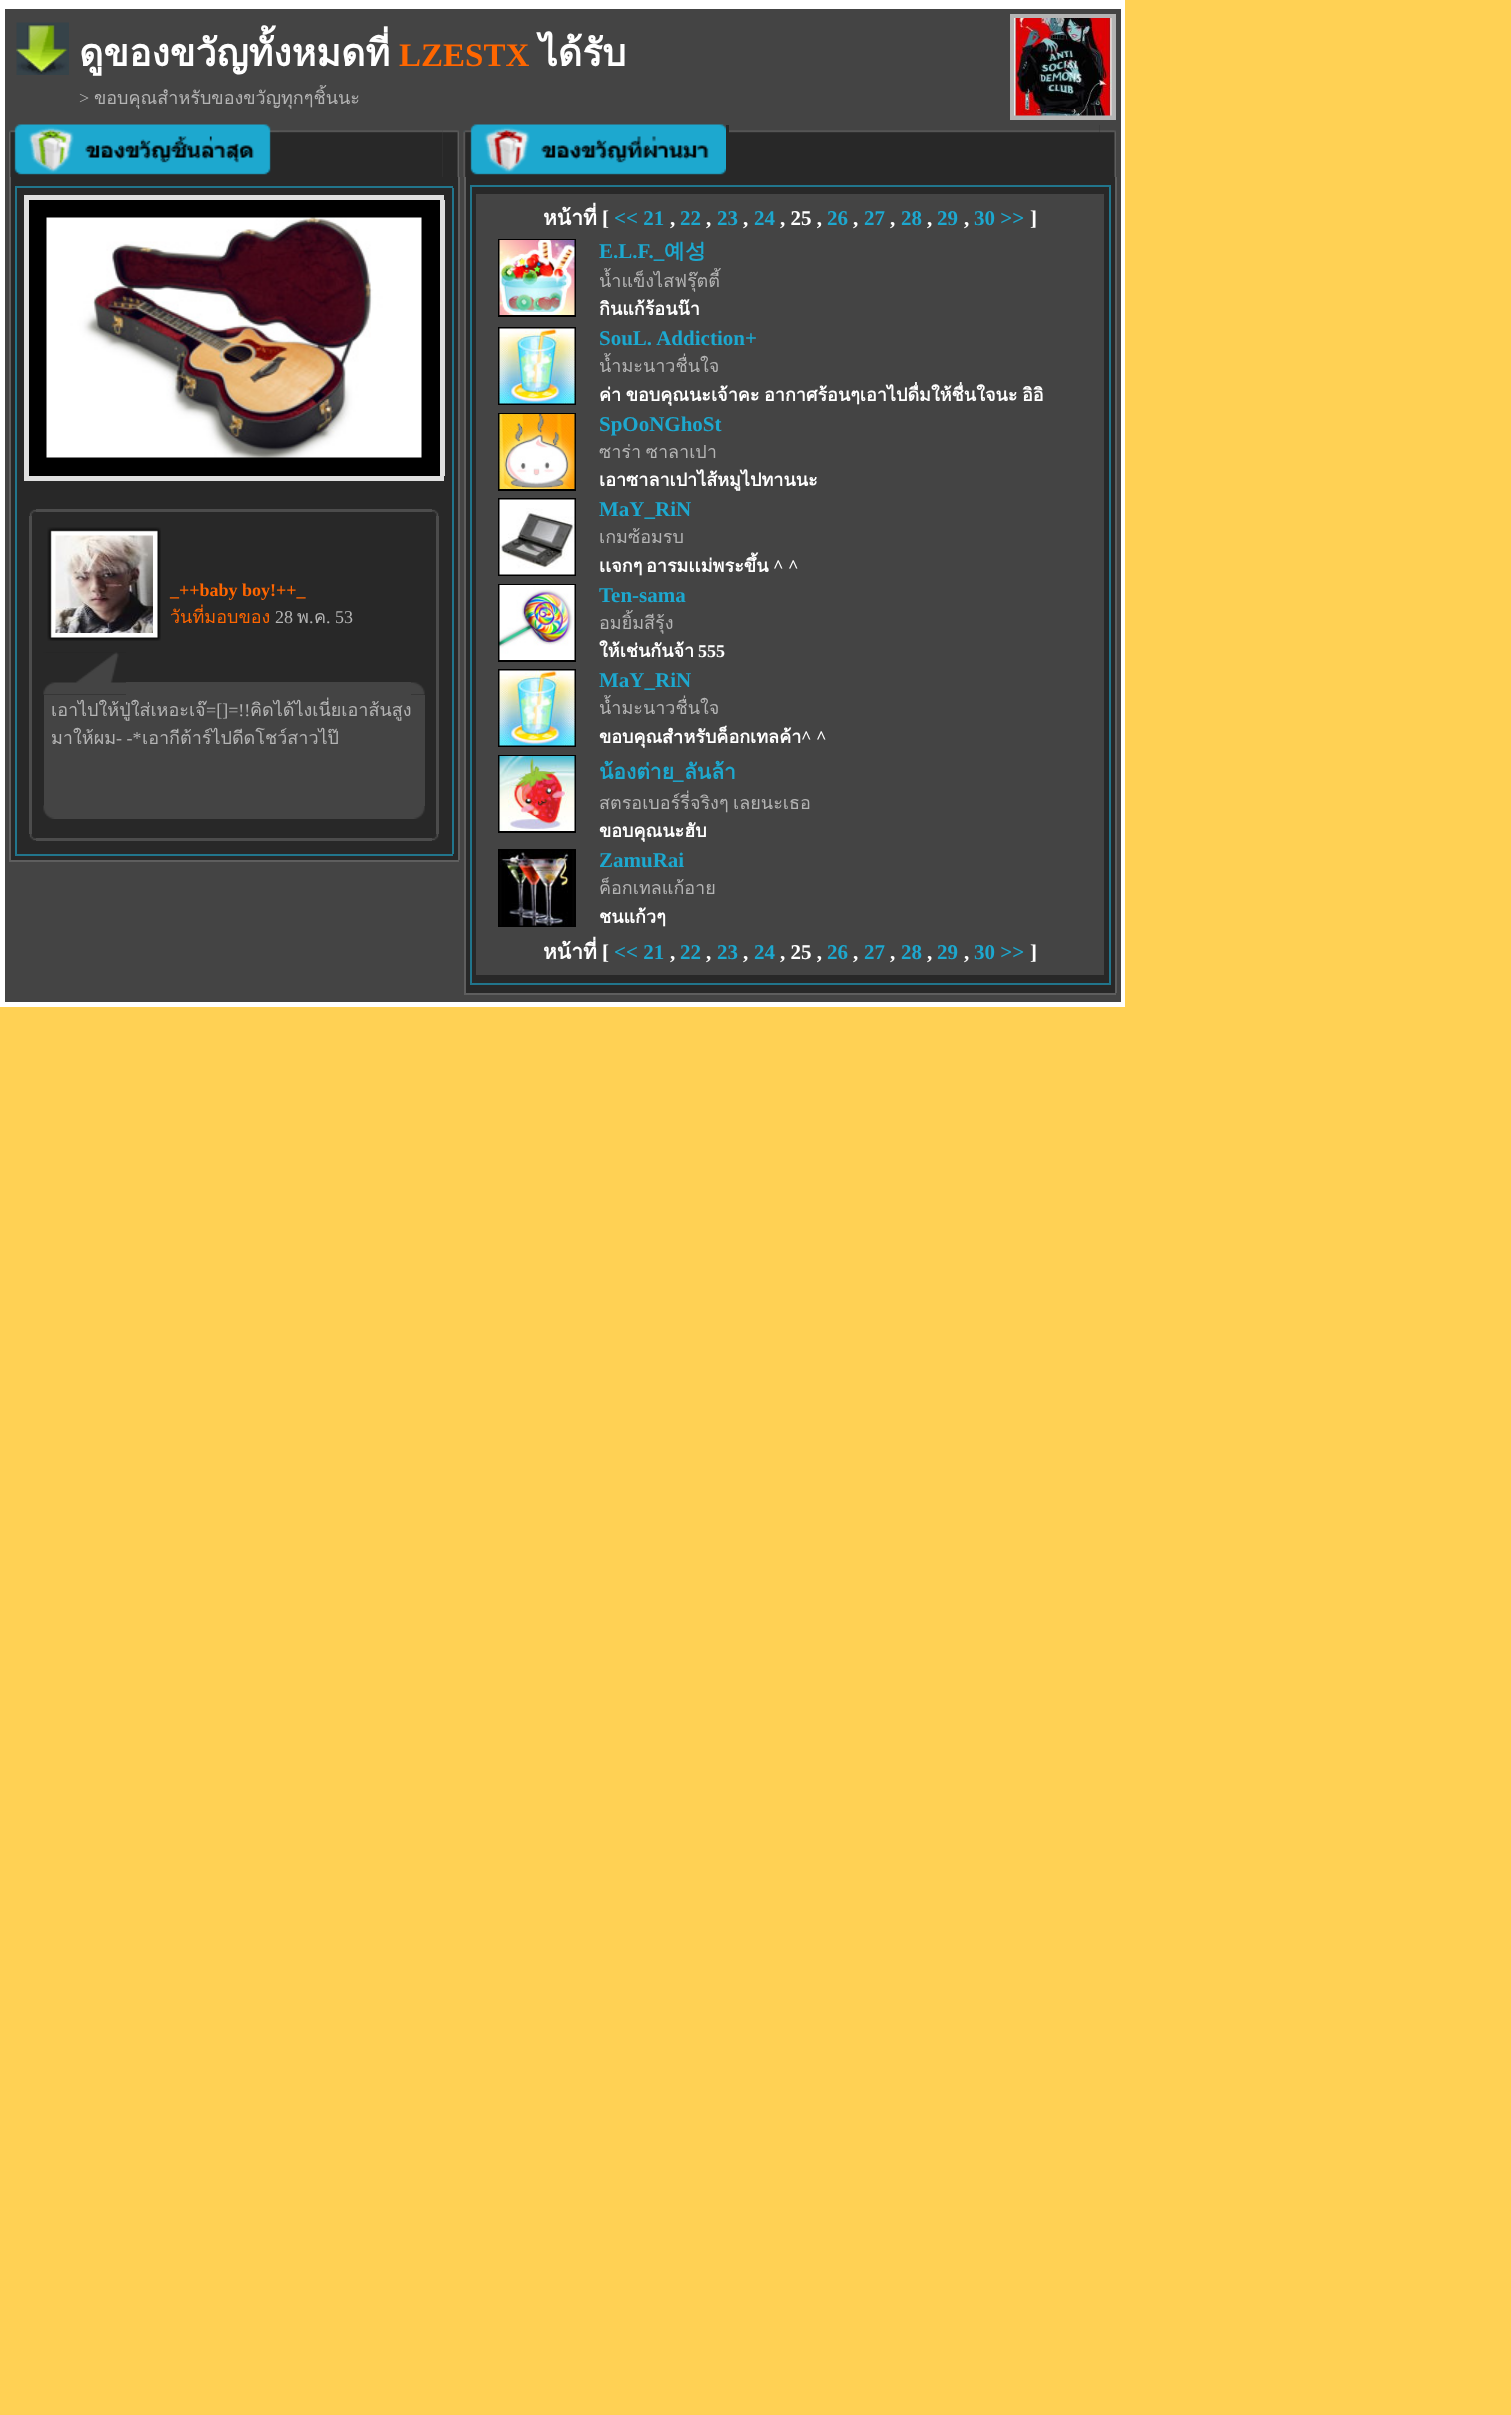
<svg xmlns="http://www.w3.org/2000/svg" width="1511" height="2415">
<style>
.a{font:bold 37.5px Loma;fill:#fff}
.b{font:bold 33px Liberation Serif;fill:#f60}
.c{font:18px Liberation Serif;fill:#b4b4b4}
.d{font:18px Loma;fill:#b4b4b4}
.e{font:bold 18px Liberation Serif;fill:#f60}
.f{font:18px Loma;fill:#f60}
.g{font:bold 21px Loma;fill:#fff}
.h{font:bold 21px Liberation Serif;fill:#fff}
.i{font:bold 21px Liberation Serif;fill:#1da8cf}
.j{font:bold 21px WenQuanYi Zen Hei;fill:#1da8cf}
.k{font:bold 18px Loma;fill:#fff}
.l{font:bold 18px Liberation Serif;fill:#fff}
.m{font:bold 21px Loma;fill:#1da8cf}
</style>
<rect width="100%" height="100%" fill="#ffd154"/>
<path fill="#fff" d="M0 0h1125v1007H0z"/>
<path fill="#444" d="M5 9h1116v993H5z"/>
<image href="1.png" x="16" y="22" width="53" height="53"/>
<path fill="none" stroke="#b4b4b4" stroke-width="5" d="M1012.5 16.5h101v101H1012.5z"/>
<image href="2.png" x="1014" y="18" width="98" height="98"/>
<image href="3.png" x="9" y="124" width="270" height="53"/>
<image href="4.png" x="279" y="130" width="164" height="47"/>
<image href="5.png" x="442" y="130" width="17" height="47"/>
<path fill="#5e5e5e" d="M9 177h2v683H9z"/>
<path fill="#282828" d="M11 177h447v683H11z"/>
<path fill="#21758c" d="M15 186h438v2H15z"/>
<path fill="#21758c" d="M15 188h2v666H15z"/>
<path fill="#dfdfdf" d="M24 195h420v5H24z"/>
<path fill="#dfdfdf" d="M24 200h5v276H24z"/>
<path fill="#000" d="M29 200h411v276H29z"/>
<image href="6.png" x="46" y="217" width="376" height="241"/>
<path fill="#dfdfdf" d="M440 200h5v276H440z"/>
<path fill="#dfdfdf" d="M24 476h420v5H24z"/>
<image href="7.png" x="29" y="509" width="7" height="7"/>
<path fill="#4c4c4c" d="M36 509h396v3H36z"/>
<image href="8.png" x="432" y="509" width="7" height="7"/>
<path fill="#4c4c4c" d="M29 516h3v318H29z"/>
<image href="9.png" x="47" y="527" width="114" height="114"/>
<image href="10.png" x="55" y="535" width="98" height="98"/>
<image href="11.png" x="43" y="652" width="83" height="43"/>
<path fill="#444" d="M126 682h285v13H126z"/>
<image href="12.png" x="411" y="682" width="14" height="13"/>
<path fill="#444" d="M44 695h381v111H44z"/>
<image href="13.png" x="43" y="805" width="14" height="14"/>
<path fill="#444" d="M57 806h354v13H57z"/>
<image href="14.png" x="411" y="806" width="14" height="13"/>
<path fill="#4c4c4c" d="M436 516h3v318H436z"/>
<image href="15.png" x="29" y="834" width="7" height="7"/>
<path fill="#4c4c4c" d="M36 838h396v3H36z"/>
<image href="16.png" x="432" y="834" width="7" height="7"/>
<path fill="#21758c" d="M452 188h2v666H452z"/>
<path fill="#21758c" d="M15 854h438v2H15z"/>
<path fill="#5e5e5e" d="M458 177h2v683H458z"/>
<path fill="#5e5e5e" d="M9 860h450v2H9z"/>
<path fill="#282828" d="M466 125h649v868H466z"/>
<image href="17.png" x="463" y="124" width="263" height="53"/>
<image href="18.png" x="729" y="125" width="371" height="8"/>
<image href="19.png" x="1099" y="125" width="17" height="52"/>
<path fill="#5e5e5e" d="M464 177h2v816H464z"/>
<path fill="#21758c" d="M470 185h2v1H470z"/>
<path fill="#21758c" d="M471 185h638v2H471z"/>
<path fill="#21758c" d="M1109 185h2v798H1109z"/>
<path fill="#21758c" d="M470 186h2v799H470z"/>
<path fill="#444" d="M476 194h628v781H476z"/>
<path fill="none" stroke="#000" stroke-width="2" d="M499 240h76v76H499z"/>
<image href="20.png" x="499" y="240" width="76" height="75"/>
<path fill="none" stroke="#000" stroke-width="2" d="M499 328h76v76H499z"/>
<image href="21.png" x="499" y="328" width="76" height="76"/>
<path fill="none" stroke="#000" stroke-width="2" d="M499 414h76v76H499z"/>
<image href="22.png" x="499" y="414" width="76" height="75"/>
<path fill="none" stroke="#000" stroke-width="2" d="M499 499h76v76H499z"/>
<image href="23.png" x="499" y="499" width="76" height="76"/>
<path fill="none" stroke="#000" stroke-width="2" d="M499 585h76v76H499z"/>
<image href="24.png" x="499" y="585" width="76" height="75"/>
<path fill="none" stroke="#000" stroke-width="2" d="M499 670h76v76H499z"/>
<image href="21.png" x="499" y="670" width="76" height="76"/>
<path fill="none" stroke="#000" stroke-width="2" d="M499 756h76v76H499z"/>
<image href="25.png" x="499" y="756" width="76" height="75"/>
<path fill="none" stroke="#000" stroke-width="2" d="M499 850h76v76H499z"/>
<image href="26.png" x="499" y="850" width="75" height="76"/>
<path fill="#21758c" d="M471 983h640v2H471z"/>
<path fill="#5e5e5e" d="M1115 177h2v816H1115z"/>
<path fill="#5e5e5e" d="M464 993h652v2H464z"/>
<text class="a" x="79" y="66">ดูของขวัญทั้งหมดที่</text>
<text class="b" x="399" y="66">LZESTX</text>
<text class="a" x="539" y="66">ได้รับ</text>
<text class="c" x="79" y="104">&gt;</text>
<text class="d" x="94" y="104">ขอบคุณสำหรับของขวัญทุกๆชิ้นนะ</text>
<text class="e" x="170" y="596">_++baby boy!++_</text>
<text class="f" x="170" y="623">วันที่มอบของ</text>
<text class="c" x="275" y="623">28</text>
<text class="d" x="297" y="623">พ</text>
<text class="c" x="309" y="623">.</text>
<text class="d" x="314" y="623">ค</text>
<text class="c" x="326" y="623">. 53</text>
<text class="d" x="51" y="716">เอาไปให้ปู่ใส่เหอะเจ๊</text>
<text class="c" x="206" y="716">=[]=!!</text>
<text class="d" x="250" y="716">คิดได้ไงเนี่ยเอาส้นสูง</text>
<text class="d" x="51" y="744">มาให้ผม</text>
<text class="c" x="116" y="744">- -*</text>
<text class="d" x="142" y="744">เอากีต้าร์ไปดีดโชว์สาวไป๊</text>
<text class="g" x="543" y="225">หน้าที่</text>
<text class="h" x="602" y="225">[</text>
<text class="i" x="614" y="225">&lt;&lt; 21</text>
<text class="h" x="670" y="225">,</text>
<text class="i" x="680" y="225">22</text>
<text class="h" x="706" y="225">,</text>
<text class="i" x="717" y="225">23</text>
<text class="h" x="743" y="225">,</text>
<text class="i" x="754" y="225">24</text>
<text class="h" x="780" y="225">, 25 ,</text>
<text class="i" x="827" y="225">26</text>
<text class="h" x="853" y="225">,</text>
<text class="i" x="864" y="225">27</text>
<text class="h" x="890" y="225">,</text>
<text class="i" x="901" y="225">28</text>
<text class="h" x="927" y="225">,</text>
<text class="i" x="937" y="225">29</text>
<text class="h" x="964" y="225">,</text>
<text class="i" x="974" y="225">30 &gt;&gt;</text>
<text class="h" x="1030" y="225">]</text>
<text class="i" x="599" y="258">E.L.F._</text>
<text class="j" x="664" y="258">예성</text>
<text class="d" x="599" y="287">น้ำแข็งไสฟรุ๊ตตี้</text>
<text class="k" x="599" y="315">กินแก้ร้อนน๊า</text>
<text class="i" x="599" y="345">SouL. Addiction+</text>
<text class="d" x="599" y="372">น้ำมะนาวชื่นใจ</text>
<text class="k" x="599" y="401" word-spacing="-1.5">ค่า ขอบคุณนะเจ้าคะ อากาศร้อนๆเอาไปดื่มให้ชื่นใจนะ อิอิ</text>
<text class="i" x="599" y="431">SpOoNGhoSt</text>
<text class="d" x="599" y="458" word-spacing="-1.5">ซาร่า ซาลาเปา</text>
<text class="k" x="599" y="486">เอาซาลาเปาไส้หมูไปทานนะ</text>
<text class="i" x="599" y="516">MaY_RiN</text>
<text class="d" x="599" y="543">เกมซ้อมรบ</text>
<text class="k" x="599" y="572">เเจกๆ</text>
<text class="k" x="646" y="572">อารมเเม่พระขึ้น</text>
<text class="l" x="773" y="572">^ ^</text>
<text class="i" x="599" y="602">Ten-sama</text>
<text class="d" x="599" y="629">อมยิ้มสีรุ้ง</text>
<text class="k" x="599" y="657">ให้เช่นกันจ้า</text>
<text class="l" x="698" y="657">555</text>
<text class="i" x="599" y="687">MaY_RiN</text>
<text class="d" x="599" y="714">น้ำมะนาวชื่นใจ</text>
<text class="k" x="599" y="743">ขอบคุณสำหรับค็อกเทลค้า</text>
<text class="l" x="801" y="743">^ ^</text>
<text class="m" x="599" y="779">น้องต่าย</text>
<text class="m" x="684" y="779">ลันล้า</text>
<text class="i" x="673" y="779">_</text>
<text class="d" x="599" y="809" word-spacing="-1.5">สตรอเบอร์รี่จริงๆ เลยนะเธอ</text>
<text class="k" x="599" y="837">ขอบคุณนะฮับ</text>
<text class="i" x="599" y="867">ZamuRai</text>
<text class="d" x="599" y="894">ค็อกเทลแก้อาย</text>
<text class="k" x="599" y="923">ชนแก้วๆ</text>
<text class="g" x="543" y="959">หน้าที่</text>
<text class="h" x="602" y="959">[</text>
<text class="i" x="614" y="959">&lt;&lt; 21</text>
<text class="h" x="670" y="959">,</text>
<text class="i" x="680" y="959">22</text>
<text class="h" x="706" y="959">,</text>
<text class="i" x="717" y="959">23</text>
<text class="h" x="743" y="959">,</text>
<text class="i" x="754" y="959">24</text>
<text class="h" x="780" y="959">, 25 ,</text>
<text class="i" x="827" y="959">26</text>
<text class="h" x="853" y="959">,</text>
<text class="i" x="864" y="959">27</text>
<text class="h" x="890" y="959">,</text>
<text class="i" x="901" y="959">28</text>
<text class="h" x="927" y="959">,</text>
<text class="i" x="937" y="959">29</text>
<text class="h" x="964" y="959">,</text>
<text class="i" x="974" y="959">30 &gt;&gt;</text>
<text class="h" x="1030" y="959">]</text>
</svg>
